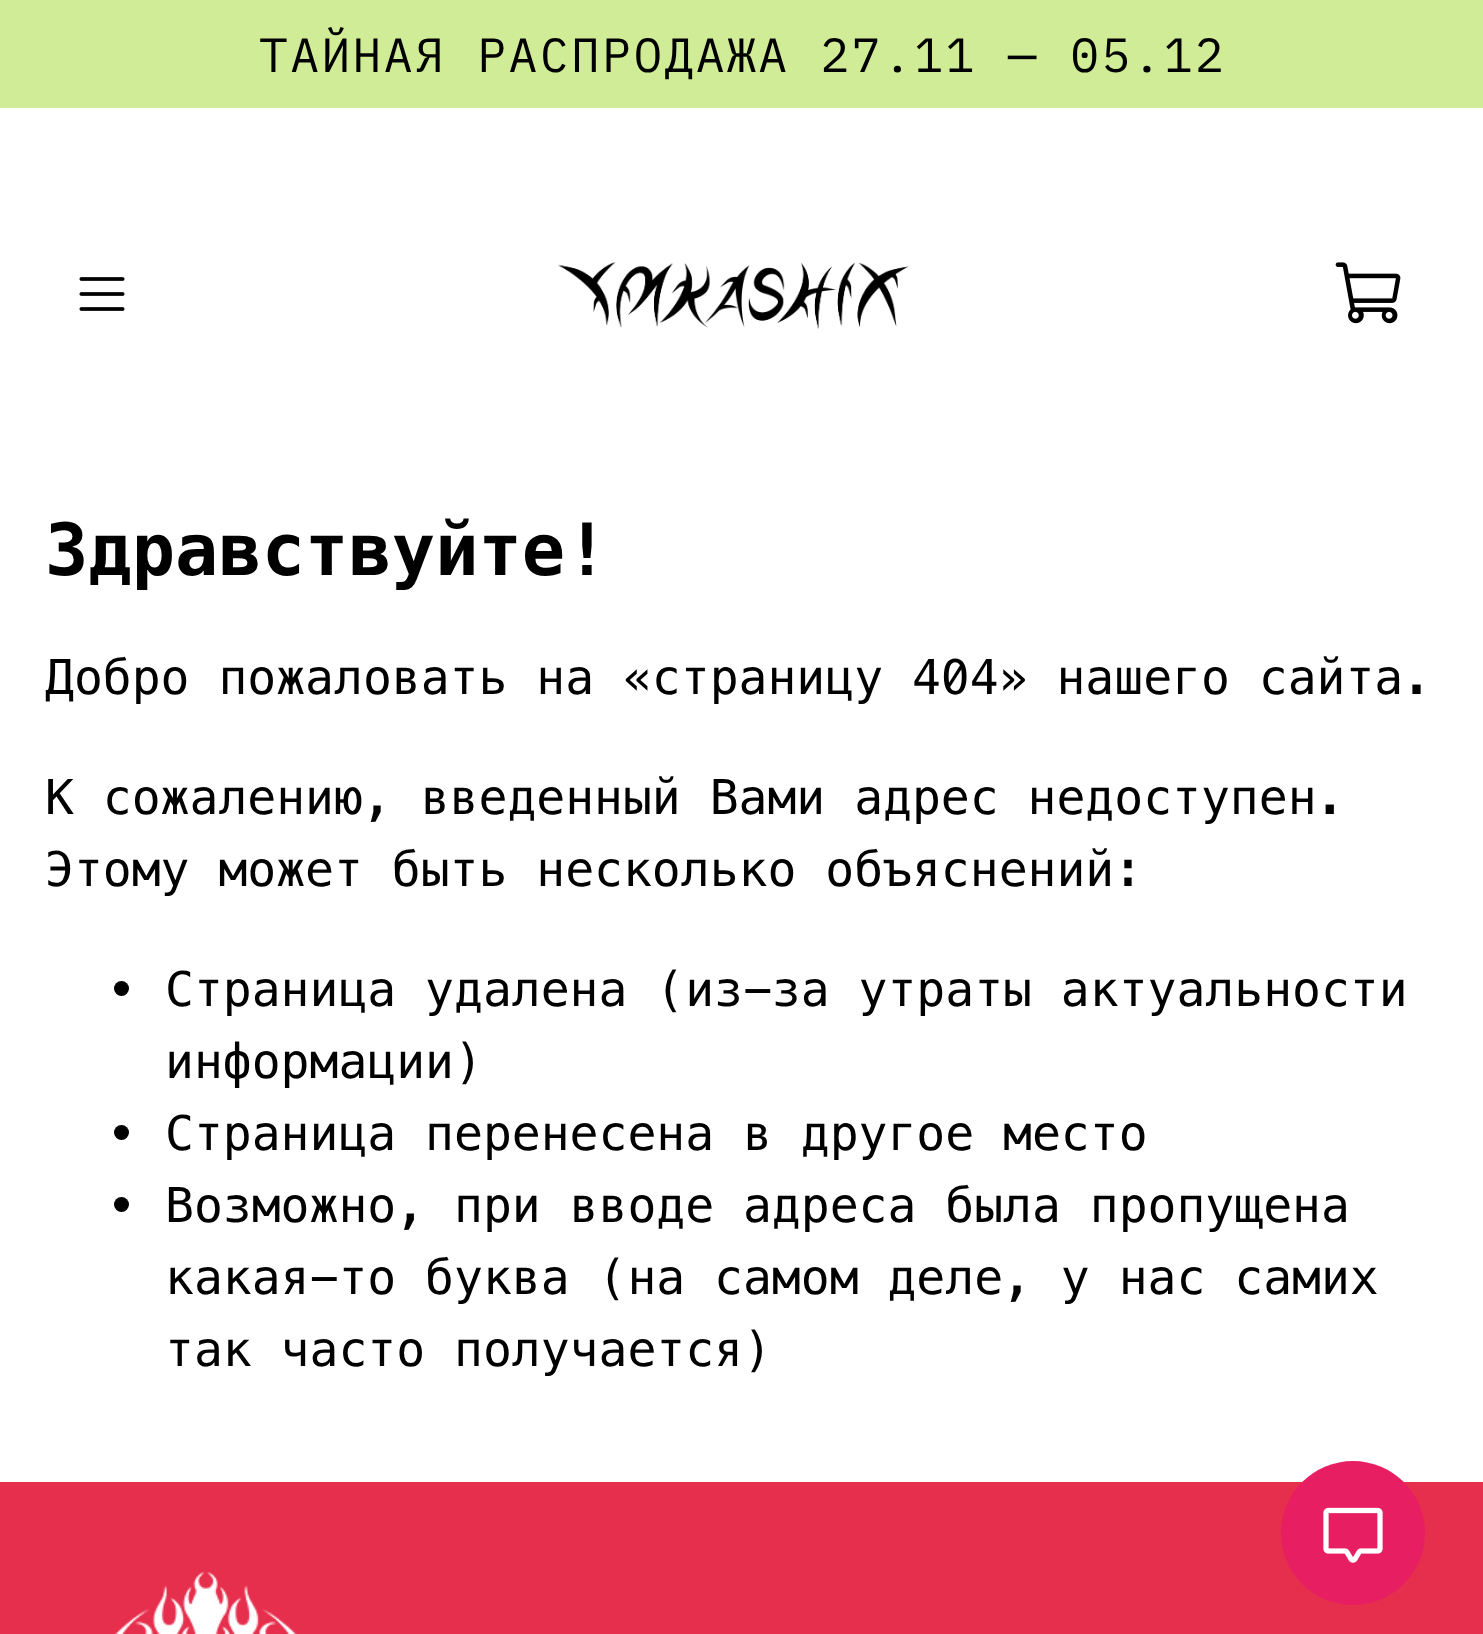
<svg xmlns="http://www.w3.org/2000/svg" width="1483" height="1634">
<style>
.a{font:48px IBM Plex Mono;letter-spacing:2.4px;fill:#000}
.b{font:bold 72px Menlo;fill:#000}
.c{font:48px Menlo;fill:#000}
</style>
<rect width="100%" height="100%" fill="#fff"/>
<path fill="#d0ec96" d="M0 0h1483v108H0z"/>
<image href="1.png" x="79" y="277" width="46" height="34"/>
<image href="2.png" x="558" y="262" width="351" height="67"/>
<image href="3.png" x="1335" y="262" width="66" height="62"/>
<circle fill="#000" cx="121.5" cy="988.5" r="7.5"/>
<circle fill="#000" cx="121.5" cy="1132.5" r="7.5"/>
<circle fill="#000" cx="121.5" cy="1204.5" r="7.5"/>
<path fill="#e62e4d" d="M0 1482h1483v152H0z"/>
<image href="4.png" x="115" y="1572" width="182" height="62"/>
<circle fill="#e81e63" cx="1353" cy="1533" r="72"/>
<image href="5.png" x="1323" y="1507" width="60" height="56"/>
<text class="a" x="259" y="72">ТАЙНАЯ РАСПРОДАЖА 27.11 — 05.12</text>
<text class="b" x="45" y="575">Здравствуйте!</text>
<text class="c" x="45" y="694">Добро пожаловать на «страницу 404» нашего сайта.</text>
<text class="c" x="45" y="814">К сожалению, введенный Вами адрес недоступен.</text>
<text class="c" x="45" y="886">Этому может быть несколько объяснений:</text>
<text class="c" x="165" y="1006">Страница удалена (из-за утраты актуальности</text>
<text class="c" x="165" y="1078">информации)</text>
<text class="c" x="165" y="1150">Страница перенесена в другое место</text>
<text class="c" x="165" y="1222">Возможно, при вводе адреса была пропущена</text>
<text class="c" x="165" y="1294">какая-то буква (на самом деле, у нас самих</text>
<text class="c" x="165" y="1366">так часто получается)</text>
</svg>
